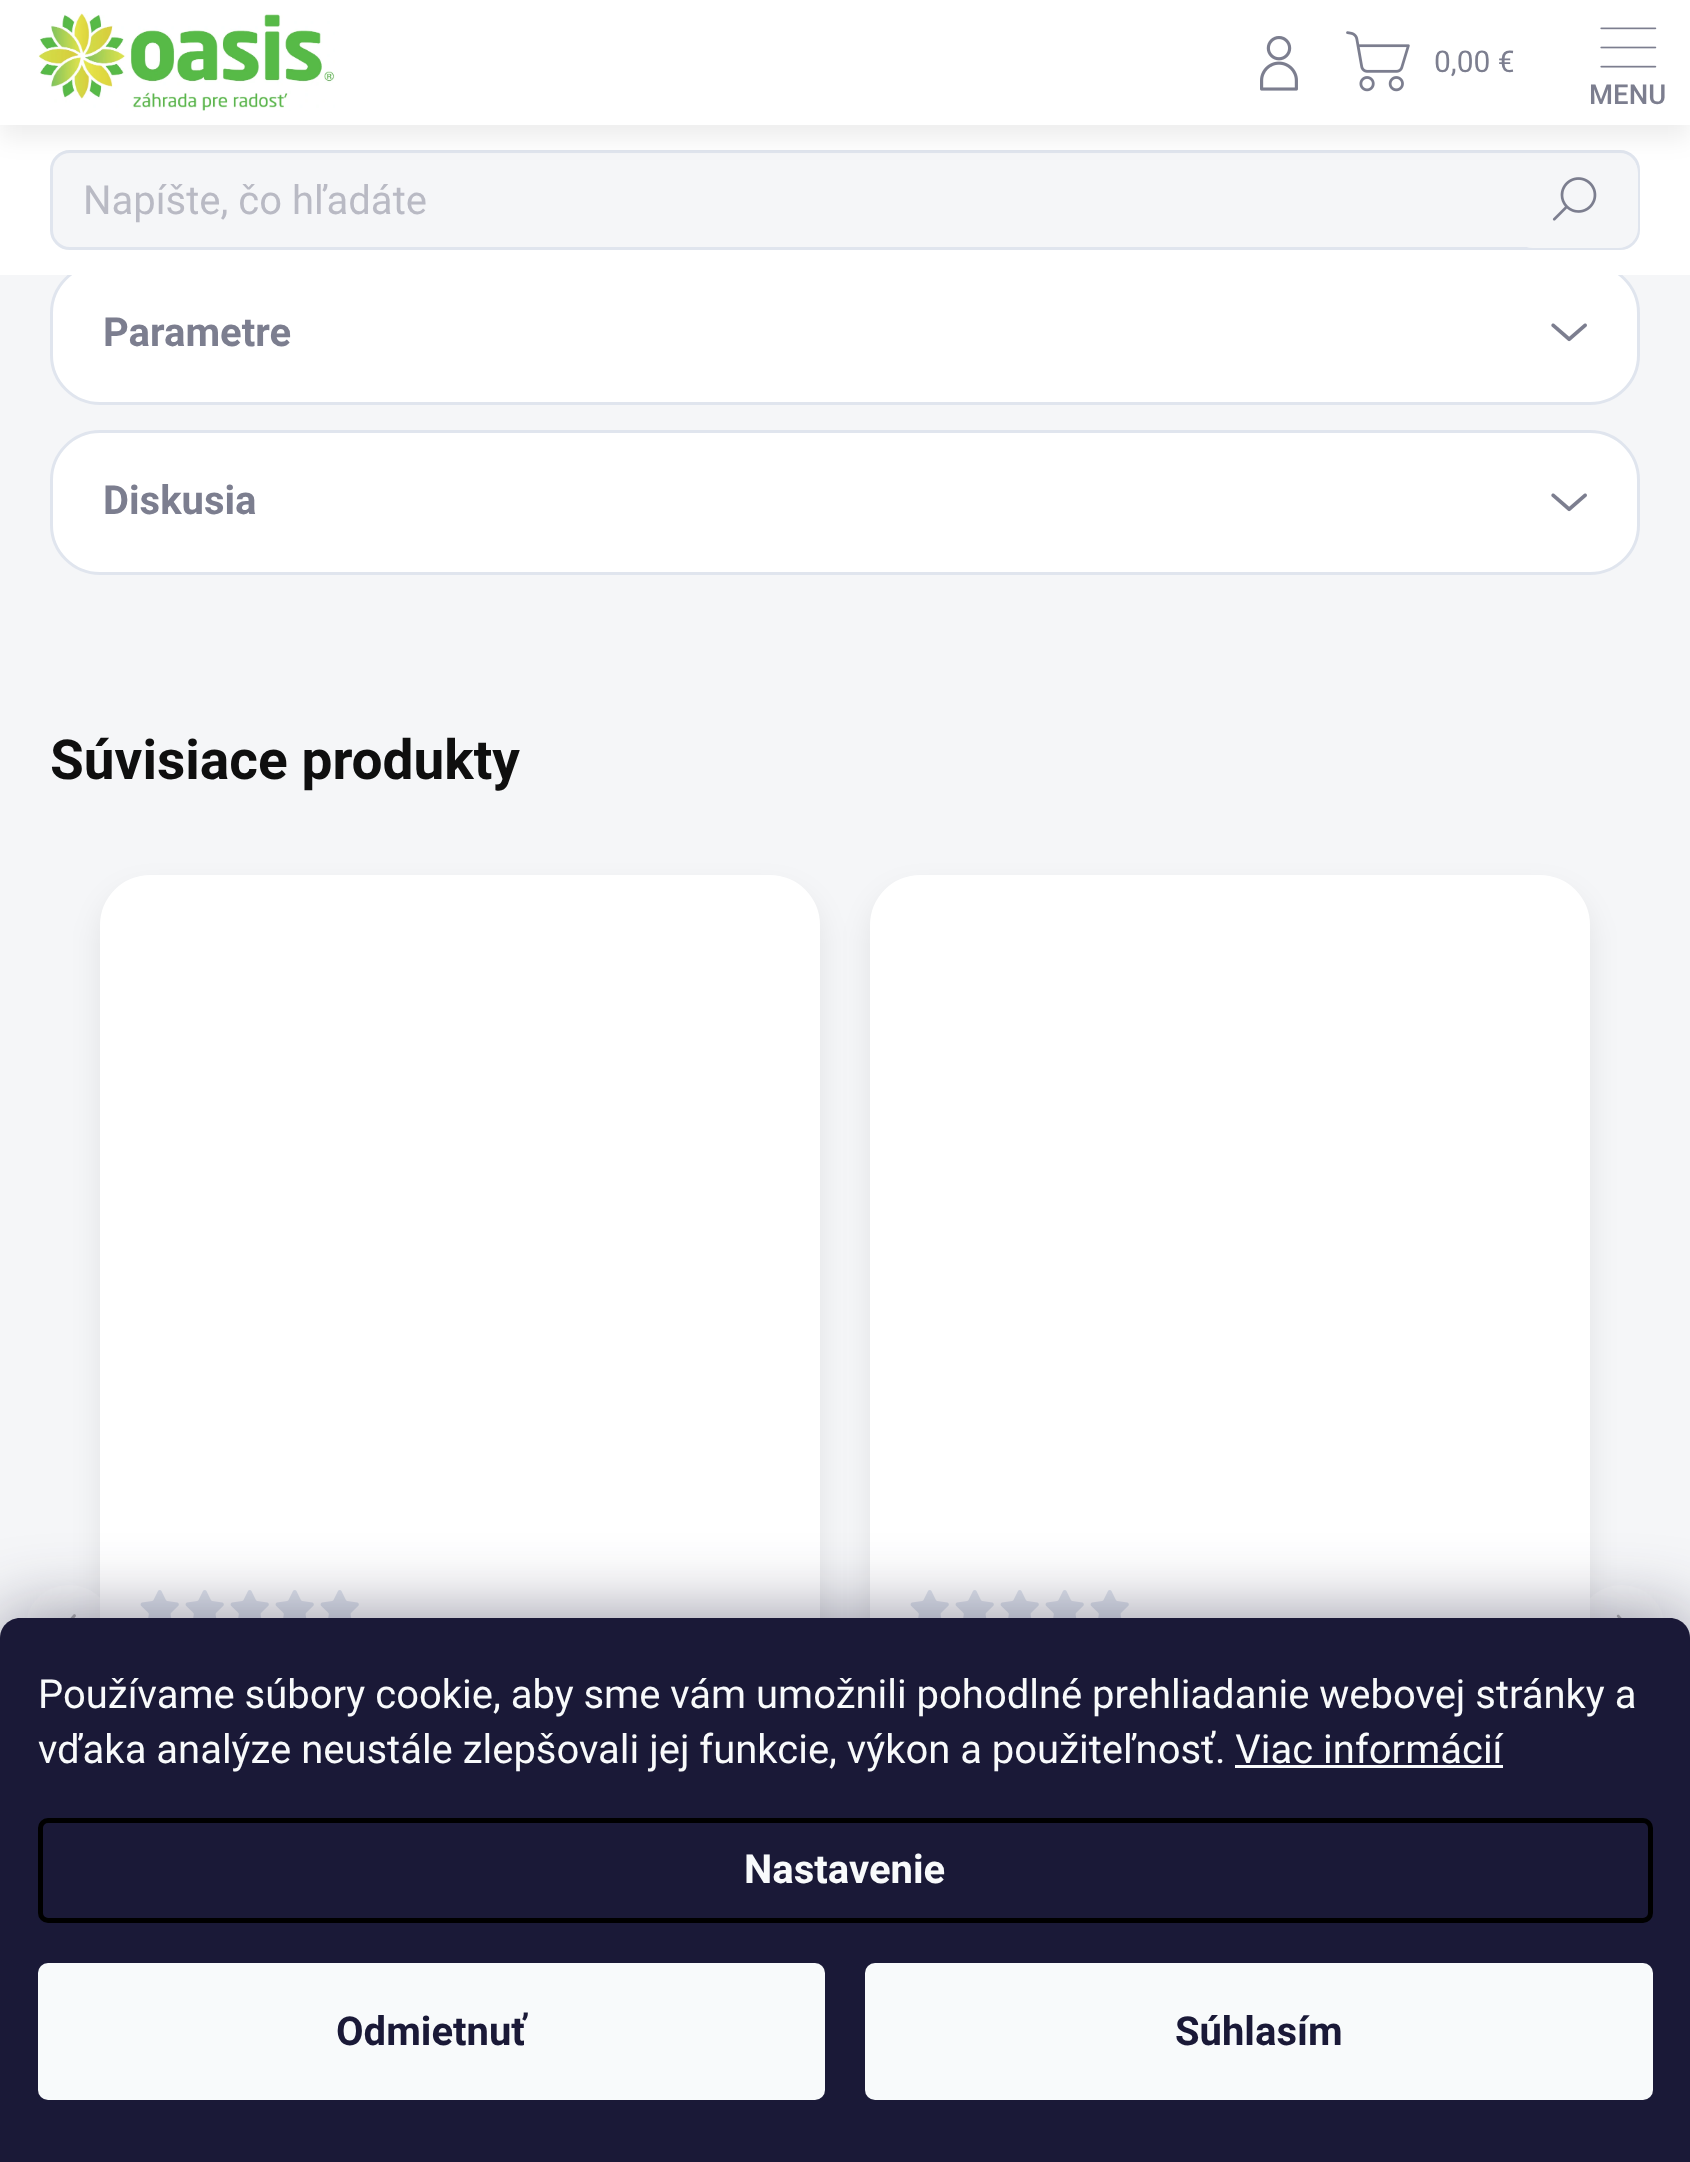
<svg xmlns="http://www.w3.org/2000/svg" width="1690" height="2162">
<style>
.a{font:30px Roboto;fill:#7c7e8f}
.b{font:500 27.5px Roboto;fill:#7c7e8f}
.c{font:40px Roboto;fill:#b9bac4}
.d{font:bold 40px Roboto;fill:#7c7e8f}
.e{font:bold 55px Roboto;fill:#0f0f0f}
.f{font:40px Roboto;fill:#f8fafb}
.g{font:bold 40px Roboto;fill:#f8fafb}
.h{font:bold 40px Roboto;fill:#1a1937}
</style>
<rect width="100%" height="100%" fill="#f5f6f8"/>
<rect fill="#fff" stroke="#e0e5ee" stroke-width="3" x="51.5" y="264.5" width="1587" height="139" rx="48.5"/>
<path fill="#fff" d="M0 125h1690v150H0z"/>
<rect fill="#f5f6f8" stroke="#e0e5ee" stroke-width="3" x="51.5" y="151.5" width="1587" height="97" rx="18.5"/>
<rect fill="#f5f6f8" x="1513" y="153" width="125" height="95" rx="20"/>
<path fill="#00000012" filter="blur(12.5px)" d="M0 13h1690v125H0z"/>
<path fill="#fff" d="M0 0h1690v125H0z"/>
<image href="1.png" x="38" y="13" width="297" height="98"/>
<image href="2.png" x="1260" y="36" width="38" height="55"/>
<image href="3.png" x="1346" y="31" width="64" height="61"/>
<image href="4.png" x="1600" y="27" width="57" height="41"/>
<image href="5.png" x="1552" y="177" width="45" height="44"/>
<image href="6.png" x="1551" y="323" width="36" height="19"/>
<rect fill="#fff" stroke="#e0e5ee" stroke-width="3" x="51.5" y="431.5" width="1587" height="142" rx="48.5"/>
<image href="6.png" x="1551" y="493" width="36" height="19"/>
<rect fill="#00000014" filter="blur(15px)" x="100" y="890" width="720" height="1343" rx="50"/>
<rect fill="#fff" x="100" y="875" width="720" height="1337" rx="50"/>
<image href="7.png" x="140" y="1590" width="39" height="28"/>
<image href="7.png" x="185" y="1590" width="39" height="28"/>
<image href="7.png" x="230" y="1590" width="39" height="28"/>
<image href="7.png" x="275" y="1590" width="39" height="28"/>
<image href="7.png" x="320" y="1590" width="39" height="28"/>
<rect fill="#00000014" filter="blur(15px)" x="870" y="890" width="720" height="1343" rx="50"/>
<rect fill="#fff" x="870" y="875" width="720" height="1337" rx="50"/>
<image href="7.png" x="910" y="1590" width="39" height="28"/>
<image href="7.png" x="955" y="1590" width="39" height="28"/>
<image href="7.png" x="1000" y="1590" width="39" height="28"/>
<image href="7.png" x="1045" y="1590" width="39" height="28"/>
<image href="7.png" x="1090" y="1590" width="39" height="28"/>
<circle fill="#ffffff4d" cx="69" cy="1629" r="44"/>
<image href="8.png" x="70" y="1614" width="6" height="4"/>
<rect fill="#ffffff4d" x="1578" y="1585" width="87" height="88" rx="43.5"/>
<image href="9.png" x="1616" y="1614" width="6" height="4"/>
<rect fill="#1b193980" filter="blur(37.5px)" y="1618" width="1690" height="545" rx="20"/>
<path fill="#1a1937" d="M20 1618h1650c11 0 20 9 20 20v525h-1690v-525c0-11 9-20 20-20z"/>
<path fill="#f8fafb" d="M1235 1765h268v3H1235z"/>
<rect fill="none" stroke="#000" stroke-width="5" x="40.5" y="1820.5" width="1610" height="100" rx="7.5"/>
<rect fill="#f8fafb" x="38" y="1963" width="787" height="137" rx="10"/>
<rect fill="#f8fafb" x="865" y="1963" width="788" height="137" rx="10"/>
<text class="a" x="1434" y="72">0,00 €</text>
<text class="b" x="1589" y="104">MENU</text>
<text class="c" x="83" y="214">Napíšte, čo hľadáte</text>
<text class="d" x="103" y="346">Parametre</text>
<text class="d" x="103" y="514">Diskusia</text>
<text class="e" x="50" y="779">Súvisiace produkty</text>
<text class="f" x="38" y="1708">Používame súbory cookie, aby sme vám umožnili pohodlné prehliadanie webovej stránky a</text>
<text class="f" x="38" y="1763">vďaka analýze neustále zlepšovali jej funkcie, výkon a použiteľnosť. Viac informácií</text>
<text class="g" x="744" y="1883">Nastavenie</text>
<text class="h" x="336" y="2045">Odmietnuť</text>
<text class="h" x="1175" y="2045">Súhlasím</text>
</svg>
